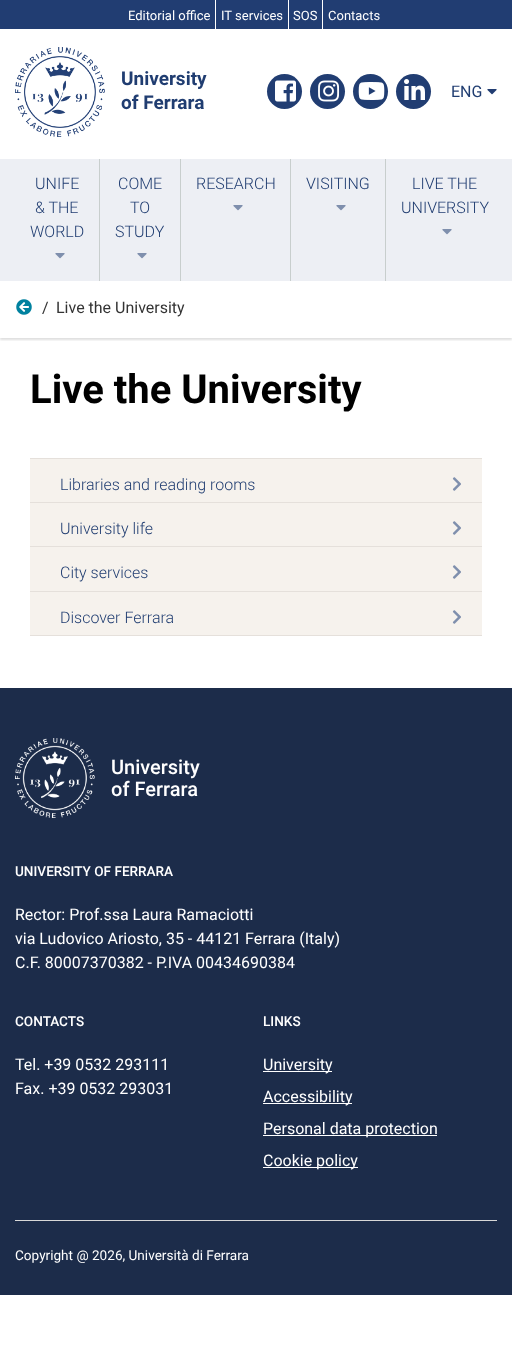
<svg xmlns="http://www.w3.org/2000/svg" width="512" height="1345">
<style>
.a{font:13px Roboto;fill:#fff}
.b{font:bold 19px Roboto;fill:#203d71}
.c{font:16px Roboto;fill:#203d71}
.d{font:300 16px Roboto;fill:#203d71}
.e{font:16px Roboto;fill:#333}
.f{font:bold 40px Roboto;fill:#000}
.g{font:500 20px Roboto;fill:#fff}
.h{font:500 13.6px Roboto;fill:#fff}
.i{font:16px Roboto;fill:#fff}
.j{font:13.6px Roboto;fill:#fff}
</style>
<defs>
<clipPath id="clip1"><path d="M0 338h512v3H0z"/></clipPath>
</defs>
<rect width="100%" height="100%" fill="#fff"/>
<path fill="#213d72" d="M0 0h512v29H0z"/>
<path fill="#fff" d="M215 0h1v29H215z"/>
<path fill="#fff" d="M288 0h1v29H288z"/>
<path fill="#fff" d="M322 0h1v29H322z"/>
<image href="1.png" x="15" y="47" width="90" height="90"/>
<circle fill="#213d72" cx="284.5" cy="91.5" r="17.5"/>
<image href="2.png" x="275" y="80" width="21" height="22"/>
<circle fill="#213d72" cx="327.5" cy="91.5" r="17.5"/>
<image href="3.png" x="318" y="80" width="22" height="22"/>
<circle fill="#213d72" cx="370.5" cy="91.5" r="17.5"/>
<image href="4.png" x="358" y="82" width="27" height="18"/>
<circle fill="#213d72" cx="413.5" cy="91.5" r="17.5"/>
<image href="5.png" x="404" y="79" width="21" height="21"/>
<image href="6.png" x="487" y="89" width="10" height="6"/>
<g clip-path="url(#clip1)">
<path fill="#00000021" filter="blur(1px)" d="M0 283h512v57H0z"/>
</g>
<path fill="#edeff4" d="M0 159h512v122H0z"/>
<path fill="#c8cecd" d="M99 159h1v122H99z"/>
<image href="7.png" x="55" y="253" width="10" height="6"/>
<path fill="#c8cecd" d="M180 159h1v122H180z"/>
<image href="7.png" x="137" y="253" width="10" height="6"/>
<path fill="#c8cecd" d="M290 159h1v122H290z"/>
<image href="7.png" x="233" y="205" width="10" height="6"/>
<path fill="#c8cecd" d="M385 159h1v122H385z"/>
<image href="7.png" x="336" y="205" width="10" height="6"/>
<image href="7.png" x="442" y="229" width="10" height="6"/>
<image href="8.png" x="16" y="299" width="16" height="16"/>
<path fill="#f6f2ed" d="M30 459h452v176H30z"/>
<path fill="#e5e0db" d="M30 458h452v1H30z"/>
<path fill="#e5e0db" d="M30 502h452v1H30z"/>
<image href="9.png" x="452" y="477" width="9" height="14"/>
<path fill="#e5e0db" d="M30 546h452v1H30z"/>
<image href="9.png" x="452" y="521" width="9" height="14"/>
<path fill="#e5e0db" d="M30 591h452v1H30z"/>
<image href="9.png" x="452" y="565" width="9" height="14"/>
<path fill="#e5e0db" d="M30 635h452v1H30z"/>
<image href="9.png" x="452" y="610" width="9" height="14"/>
<path fill="#1c2c4a" d="M0 688h512v607H0z"/>
<image href="10.png" x="15" y="738" width="80" height="80"/>
<path fill="#fff" d="M263 1071h69v1H263z"/>
<path fill="#fff" d="M263 1103h89v1H263z"/>
<path fill="#fff" d="M263 1135h174v1H263z"/>
<path fill="#fff" d="M263 1167h95v1H263z"/>
<path fill="#d8d8d8" d="M15 1220h482v1H15z"/>
<text class="a" x="128" y="20">Editorial office</text>
<text class="a" x="221" y="20">IT services</text>
<text class="a" x="293" y="20">SOS</text>
<text class="a" x="328" y="20">Contacts</text>
<text class="b" x="121" y="85">University</text>
<text class="b" x="121" y="109">of Ferrara</text>
<text class="c" x="451" y="97">ENG</text>
<text class="d" x="35" y="189">UNIFE</text>
<text class="d" x="35" y="213">&amp; THE</text>
<text class="d" x="30" y="237">WORLD</text>
<text class="d" x="118" y="189">COME</text>
<text class="d" x="130" y="213">TO</text>
<text class="d" x="115" y="237">STUDY</text>
<text class="d" x="196" y="189">RESEARCH</text>
<text class="d" x="306" y="189">VISITING</text>
<text class="d" x="412" y="189">LIVE THE</text>
<text class="d" x="401" y="213">UNIVERSITY</text>
<text class="e" x="42" y="313">/</text>
<text class="e" x="56" y="313">Live the University</text>
<text class="f" x="30" y="403">Live the University</text>
<text class="d" x="60" y="490">Libraries and reading rooms</text>
<text class="d" x="60" y="534">University life</text>
<text class="d" x="60" y="578">City services</text>
<text class="d" x="60" y="623">Discover Ferrara</text>
<text class="g" x="111" y="774">University</text>
<text class="g" x="111" y="796">of Ferrara</text>
<text class="h" x="15" y="876">UNIVERSITY OF FERRARA</text>
<text class="i" x="15" y="920">Rector: Prof.ssa Laura Ramaciotti</text>
<text class="i" x="15" y="944">via Ludovico Ariosto, 35 - 44121 Ferrara (Italy)</text>
<text class="i" x="15" y="968">C.F. 80007370382 - P.IVA 00434690384</text>
<text class="h" x="15" y="1026">CONTACTS</text>
<text class="i" x="15" y="1070">Tel. +39 0532 293111</text>
<text class="i" x="15" y="1094">Fax. +39 0532 293031</text>
<text class="h" x="263" y="1026">LINKS</text>
<text class="i" x="263" y="1070">University</text>
<text class="i" x="263" y="1102">Accessibility</text>
<text class="i" x="263" y="1134">Personal data protection</text>
<text class="i" x="263" y="1166">Cookie policy</text>
<text class="j" x="15" y="1260">Copyright @ 2026, Università di Ferrara</text>
</svg>
